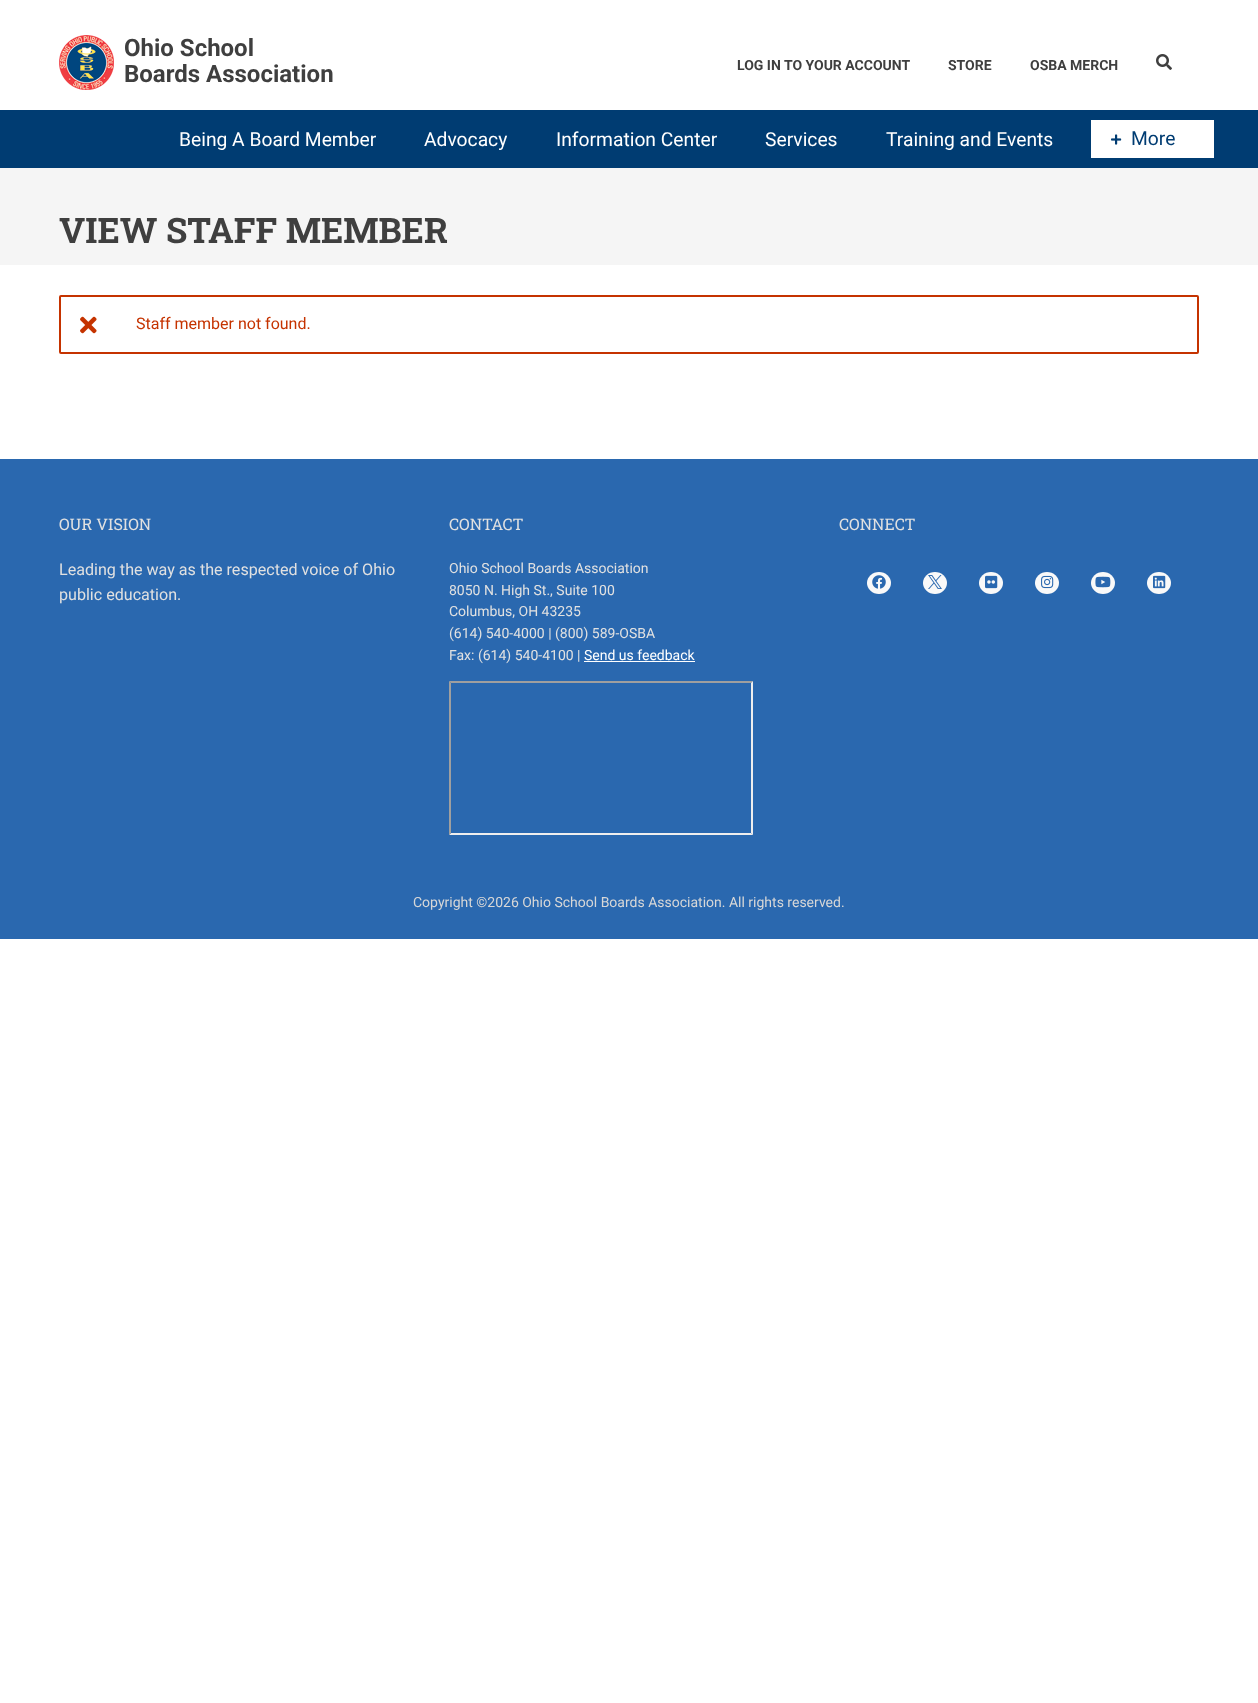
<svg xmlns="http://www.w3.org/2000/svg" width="1258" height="1703">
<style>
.a{font:bold 24px Roboto;fill:#3f3f3f}
.b{font:bold 14px Roboto;fill:#3f3f3f}
.c{font:19.25px Roboto;fill:#fff}
.d{font:19.25px Roboto;fill:#003c72}
.e{font:bold 35px Roboto Slab;fill:#3f3f3f}
.f{font:16px Roboto;fill:#c53300}
.g{font:16px Roboto Slab;fill:#e1e1e1}
.h{font:16.1px Roboto;fill:#e1e1e1}
.i{font:14px Roboto;fill:#e1e1e1}
.j{font:14px Roboto;fill:#fff}
.k{font:14px Roboto;fill:#d7d7d7}
</style>
<rect width="100%" height="100%" fill="#fff"/>
<image href="1.png" x="59" y="35" width="55" height="55"/>
<image href="2.png" x="1156" y="54" width="16" height="16"/>
<path fill="#f5f5f5" d="M0 168h1258v97H0z"/>
<path fill="#003c72" d="M0 110h1258v58H0z"/>
<path fill="#fff" d="M1091 120h123v38H1091z"/>
<image href="3.png" x="1111" y="134" width="11" height="11"/>
<rect fill="none" stroke="#c53300" stroke-width="2" x="60" y="296" width="1138" height="57" rx="1"/>
<image href="4.png" x="80" y="316" width="17" height="18"/>
<path fill="#2a68af" d="M0 459h1258v480H0z"/>
<path fill="#fff" d="M584 661h111v1H584z"/>
<path fill="#9f9f9f" d="M449 681h304l-2 2h-300z"/>
<path fill="#eee" d="M753 681v154l-2-2v-150z"/>
<path fill="#eee" d="M753 835h-304l2-2h300z"/>
<path fill="#9f9f9f" d="M449 835v-154l2 2v150z"/>
<ellipse fill="#f9f9f9" cx="879" cy="583" rx="12" ry="11"/>
<image href="5.png" x="872" y="575" width="14" height="14"/>
<ellipse fill="#f9f9f9" cx="935" cy="583" rx="12" ry="11"/>
<image href="6.png" x="928" y="575" width="14" height="14"/>
<ellipse fill="#f9f9f9" cx="991" cy="583" rx="12" ry="11"/>
<image href="7.png" x="985" y="575" width="13" height="14"/>
<ellipse fill="#f9f9f9" cx="1047" cy="583" rx="12" ry="11"/>
<image href="8.png" x="1041" y="575" width="13" height="14"/>
<ellipse fill="#f9f9f9" cx="1103" cy="583" rx="12" ry="11"/>
<image href="9.png" x="1095" y="576" width="16" height="12"/>
<ellipse fill="#f9f9f9" cx="1159" cy="583" rx="12" ry="11"/>
<image href="10.png" x="1153" y="575" width="13" height="14"/>
<text class="a" x="124" y="56">Ohio School</text>
<text class="a" x="124" y="82">Boards Association</text>
<text class="b" x="737" y="70">LOG IN TO YOUR ACCOUNT</text>
<text class="b" x="948" y="70">STORE</text>
<text class="b" x="1030" y="70">OSBA MERCH</text>
<text class="c" x="179" y="146">Being A Board Member</text>
<text class="c" x="424" y="146">Advocacy</text>
<text class="c" x="556" y="146">Information Center</text>
<text class="c" x="765" y="146">Services</text>
<text class="c" x="886" y="146">Training and Events</text>
<text class="d" x="1131" y="145">More</text>
<text class="e" x="59" y="243">VIEW STAFF MEMBER</text>
<text class="f" x="136" y="329">Staff member not found.</text>
<text class="g" x="59" y="530">OUR VISION</text>
<text class="h" x="59" y="575">Leading the way as the respected voice of Ohio</text>
<text class="h" x="59" y="600">public education.</text>
<text class="g" x="449" y="530">CONTACT</text>
<text class="i" x="449" y="573">Ohio School Boards Association</text>
<text class="i" x="449" y="595">8050 N. High St., Suite 100</text>
<text class="i" x="449" y="616">Columbus, OH 43235</text>
<text class="i" x="449" y="638">(614) 540-4000 | (800) 589-OSBA</text>
<text class="i" x="449" y="660">Fax: (614) 540-4100 |</text>
<text class="j" x="584" y="660">Send us feedback</text>
<text class="g" x="839" y="530">CONNECT</text>
<text class="k" x="413" y="907">Copyright ©2026 Ohio School Boards Association. All rights reserved.</text>
</svg>
